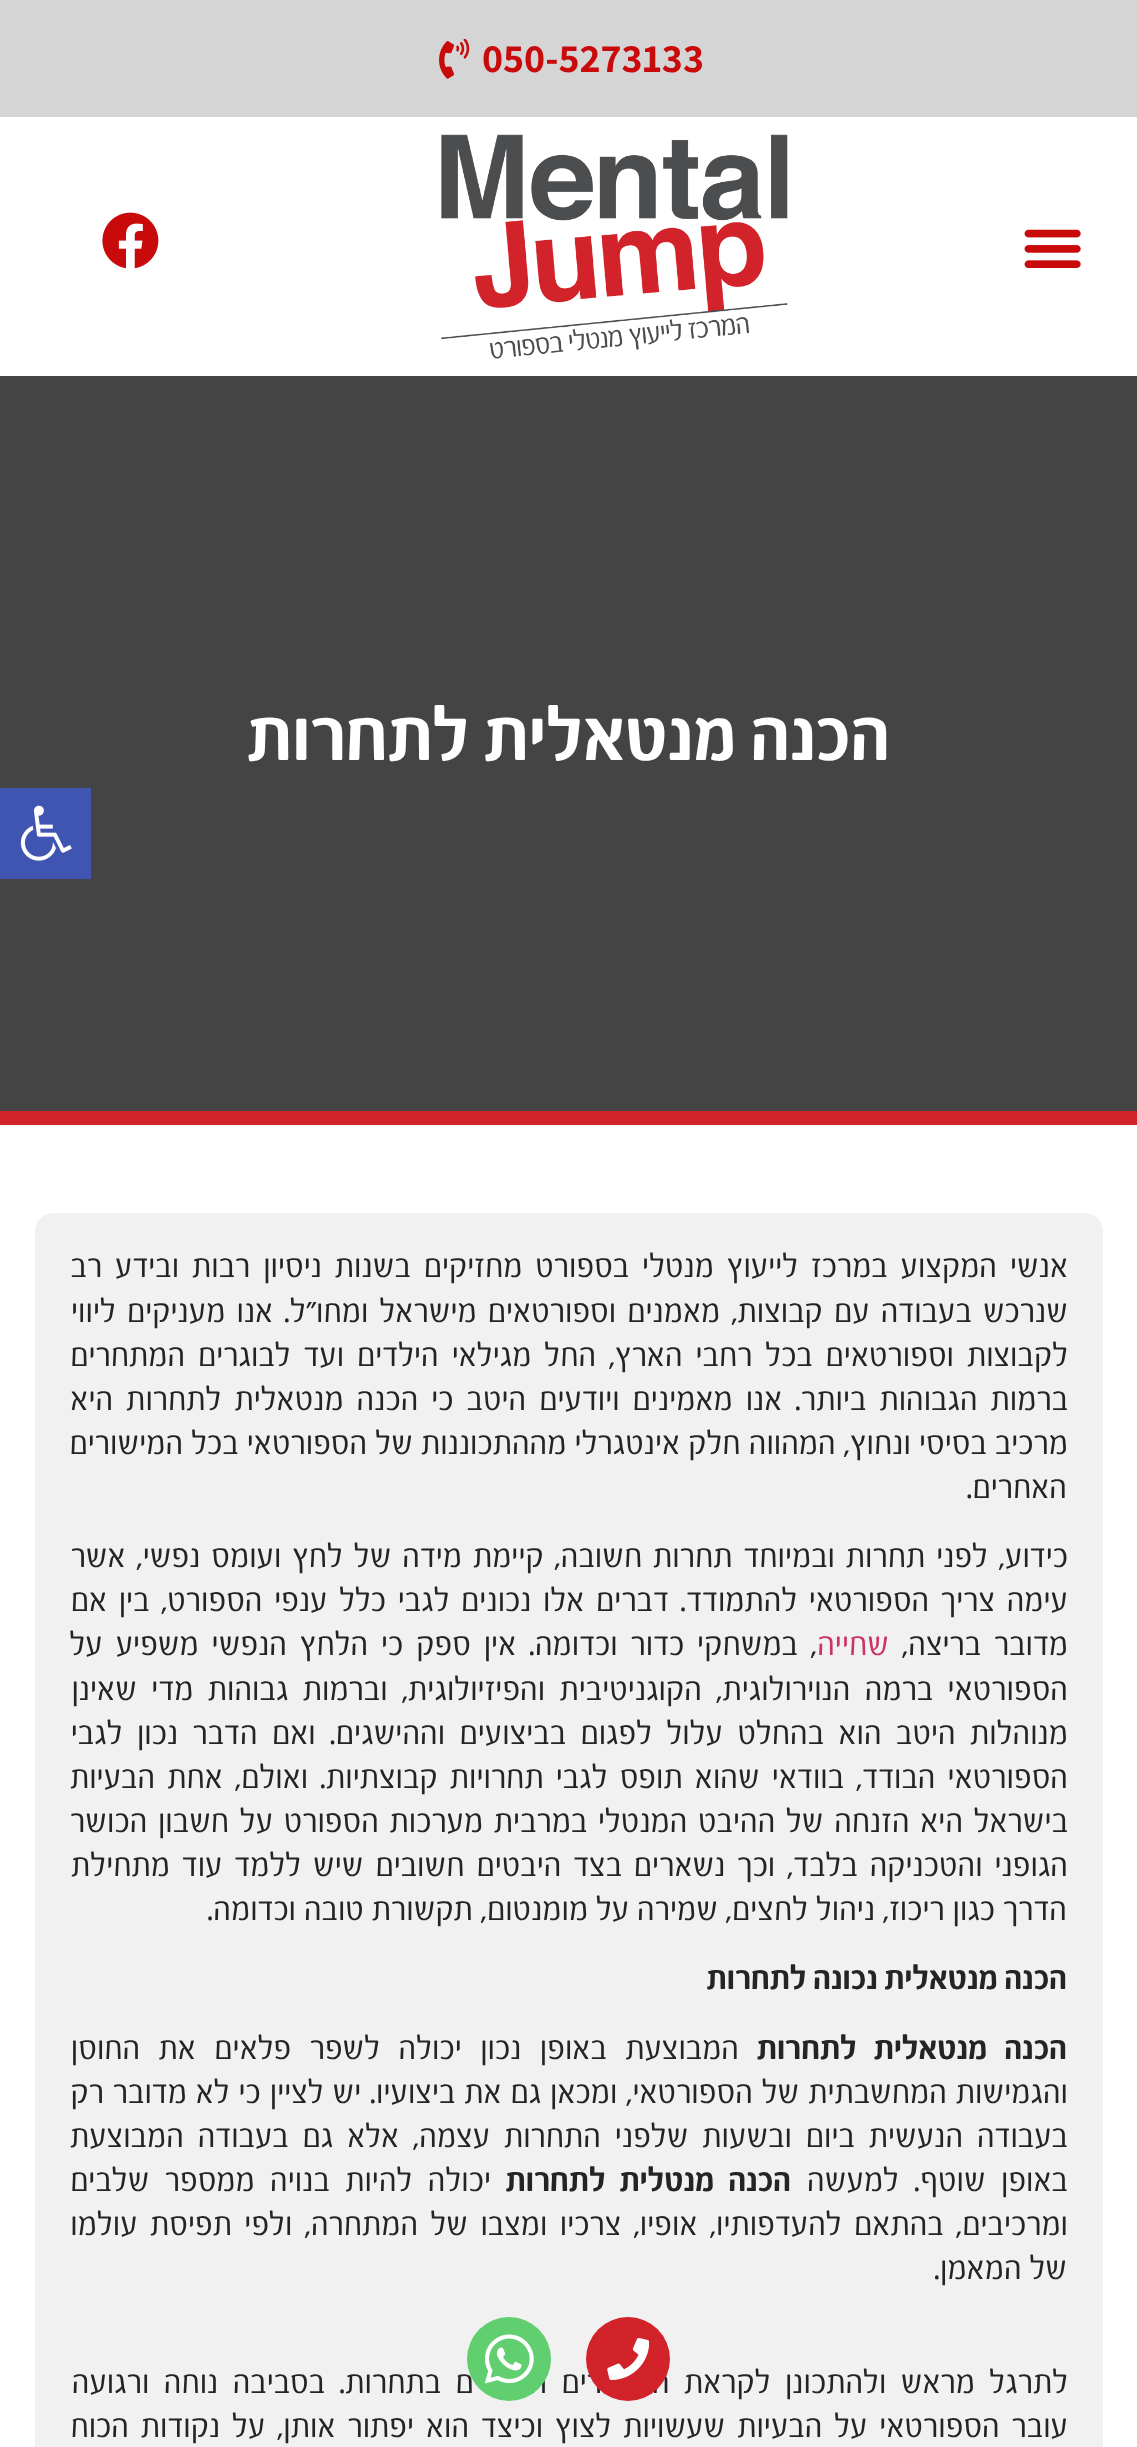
<svg xmlns="http://www.w3.org/2000/svg" width="1137" height="2447">
<style>
.a{font:bold 40.25px Assistant;fill:#c90a0a}
.b{font:bold 70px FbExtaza;direction:rtl;fill:#fff}
.c{font:31.5px FbExtaza;direction:rtl;fill:#242424}
.d{font:31.5px FbExtaza;direction:rtl;fill:#c36}
.e{font:bold 31.5px FbExtaza;direction:rtl;fill:#242424}
</style>
<rect width="100%" height="100%" fill="#fff"/>
<path fill="#d5d5d5" d="M0 0h1137v117H0z"/>
<image href="1.png" x="439" y="39" width="31" height="40"/>
<image href="2.png" x="1024" y="229" width="57" height="39"/>
<image href="3.png" x="441" y="134" width="347" height="225"/>
<image href="4.png" x="102" y="212" width="57" height="57"/>
<path fill="#444" d="M0 376h1137v735H0z"/>
<path fill="#d2232a" d="M0 1111h1137v14H0z"/>
<rect fill="#f1f1f1" x="35" y="1213" width="1068" height="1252" rx="18"/>
<path fill="#4054b2" d="M0 788h91v91H0z"/>
<image href="5.png" x="20" y="805" width="52" height="56"/>
<text class="a" x="482" y="72">050-5273133</text>
<text class="b" x="890" y="760">הכנה מנטאלית לתחרות</text>
<text class="c" x="1068" y="1277" word-spacing="5">אנשי המקצוע במרכז לייעוץ מנטלי בספורט מחזיקים בשנות ניסיון רבות ובידע רב</text>
<text class="c" x="1068" y="1322" word-spacing="3.25">שנרכש בעבודה עם קבוצות, מאמנים וספורטאים מישראל ומחו"ל. אנו מעניקים ליווי</text>
<text class="c" x="1068" y="1366" word-spacing="5">לקבוצות וספורטאים בכל רחבי הארץ, החל מגילאי הילדים ועד לבוגרים המתחרים</text>
<text class="c" x="1068" y="1410" word-spacing="5.1">ברמות הגבוהות ביותר. אנו מאמינים ויודעים היטב כי הכנה מנטאלית לתחרות היא</text>
<text class="c" x="1068" y="1454" word-spacing="0.25">מרכיב בסיסי ונחוץ, המהווה חלק אינטגרלי מההתכוננות של הספורטאי בכל המישורים</text>
<text class="c" x="1067" y="1498">האחרים.</text>
<text class="c" x="1068" y="1567" word-spacing="3">כידוע, לפני תחרות ובמיוחד תחרות חשובה, קיימת מידה של לחץ ועומס נפשי, אשר</text>
<text class="c" x="1068" y="1611" word-spacing="3.75">עימה צריך הספורטאי להתמודד. דברים אלו נכונים לגבי כלל ענפי הספורט, בין אם</text>
<text class="c" x="1068" y="1655" word-spacing="5">מדובר בריצה,</text>
<text class="d" x="889" y="1655">שחייה</text>
<text class="c" x="817" y="1655" word-spacing="5">, במשחקי כדור וכדומה. אין ספק כי הלחץ הנפשי משפיע על</text>
<text class="c" x="1068" y="1700" word-spacing="6.5">הספורטאי ברמה הנוירולוגית, הקוגניטיבית והפיזיולוגית, וברמות גבוהות מדי שאינן</text>
<text class="c" x="1068" y="1744" word-spacing="6.5">מנוהלות היטב הוא בהחלט עלול לפגום בביצועים וההישגים. ואם הדבר נכון לגבי</text>
<text class="c" x="1068" y="1788" word-spacing="4.25">הספורטאי הבודד, בוודאי שהוא תופס לגבי תחרויות קבוצתיות. ואולם, אחת הבעיות</text>
<text class="c" x="1068" y="1832" word-spacing="2.75">בישראל היא הזנחה של ההיבט המנטלי במרבית מערכות הספורט על חשבון הכושר</text>
<text class="c" x="1068" y="1876" word-spacing="4">הגופני והטכניקה בלבד, וכך נשארים בצד היבטים חשובים שיש ללמד עוד מתחילת</text>
<text class="c" x="1067" y="1920">הדרך כגון ריכוז, ניהול לחצים, שמירה על מומנטום, תקשורת טובה וכדומה.</text>
<text class="e" x="1067" y="1989">הכנה מנטאלית נכונה לתחרות</text>
<text class="e" x="1067" y="2059" word-spacing="10.5">הכנה מנטאלית לתחרות</text>
<text class="c" x="739" y="2059" word-spacing="10.5">המבוצעת באופן נכון יכולה לשפר פלאים את החוסן</text>
<text class="c" x="1068" y="2103" word-spacing="1">והגמישות המחשבתית של הספורטאי, ומכאן גם את ביצועיו. יש לציין כי לא מדובר רק</text>
<text class="c" x="1068" y="2147" word-spacing="6">בעבודה הנעשית ביום ובשעות שלפני התחרות עצמה, אלא גם בעבודה המבוצעת</text>
<text class="c" x="1068" y="2191" word-spacing="7.5">באופן שוטף. למעשה</text>
<text class="e" x="791" y="2191" word-spacing="7.5">הכנה מנטלית לתחרות</text>
<text class="c" x="491" y="2191" word-spacing="7.5">יכולה להיות בנויה ממספר שלבים</text>
<text class="c" x="1068" y="2235" word-spacing="4.5">ומרכיבים, בהתאם להעדפותיו, אופיו, צרכיו ומצבו של המתחרה, ולפי תפיסת עולמו</text>
<text class="c" x="1067" y="2279">של המאמן.</text>
<text class="c" x="1068" y="2393" word-spacing="6.5">לתרגל מראש ולהתכונן לקראת האתגרים הצפויים בתחרות. בסביבה נוחה ורגועה</text>
<text class="c" x="1068" y="2437" word-spacing="4">עובר הספורטאי על הבעיות שעשויות לצוץ וכיצד הוא יפתור אותן, על נקודות הכוח</text>
<circle fill="#d2232a" cx="628" cy="2359" r="42"/>
<image href="6.png" x="607" y="2338" width="42" height="42"/>
<circle fill="#61ce70" cx="509" cy="2359" r="42"/>
<image href="7.png" x="484" y="2334" width="50" height="50"/>
</svg>
